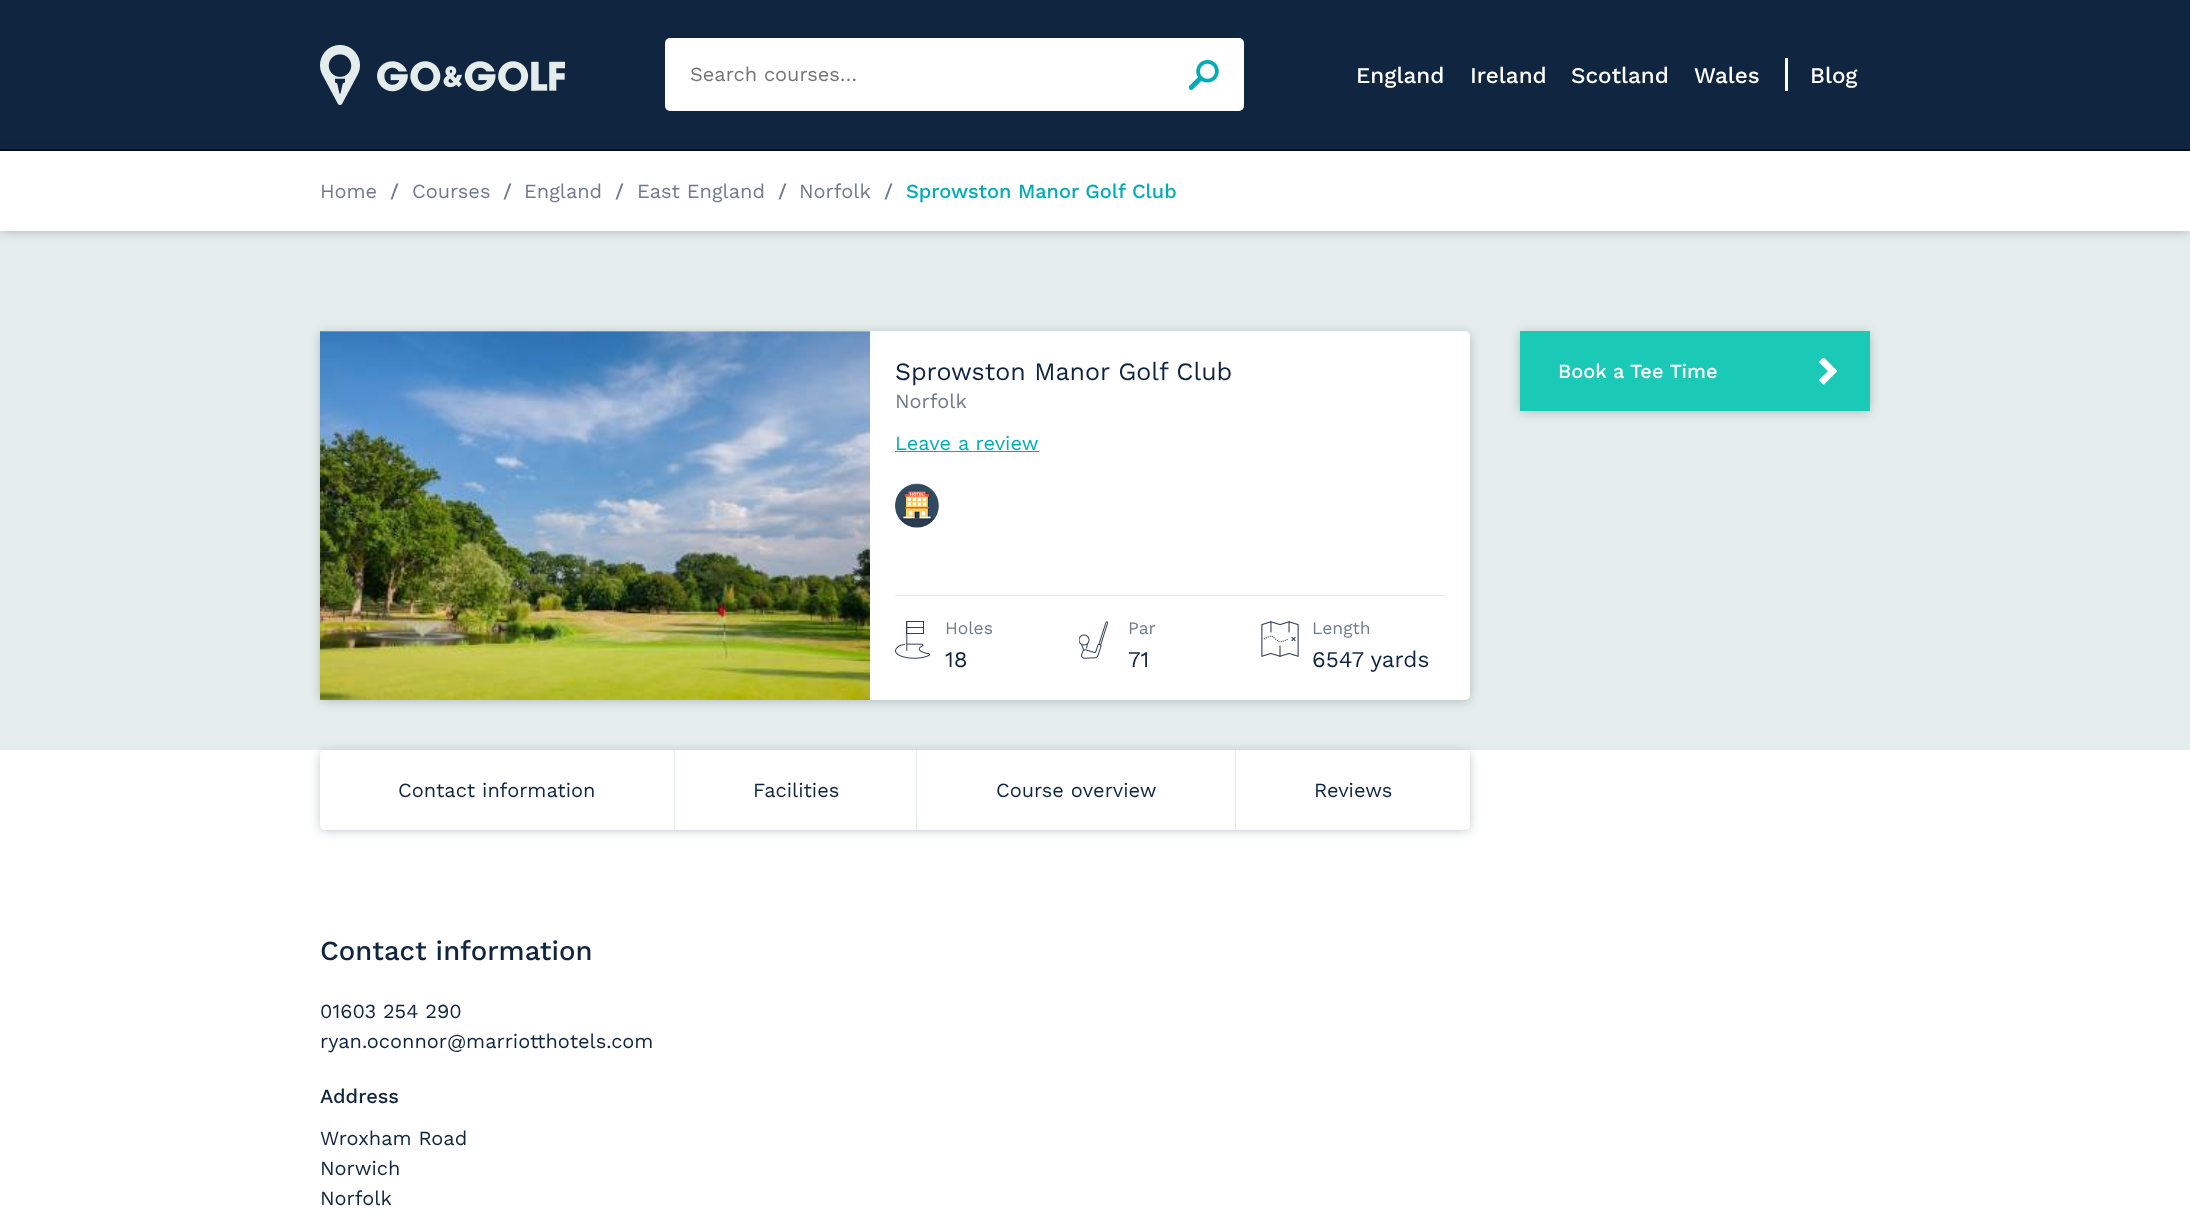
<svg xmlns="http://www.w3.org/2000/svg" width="2190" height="1217">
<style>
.a{font:20px Work Sans;fill:#757575}
.b{font:500 22.5px Work Sans;fill:#fff}
.c{font:20px Work Sans;fill:#707c8c}
.d{font:500 20px Work Sans;fill:#707c8c}
.e{font:500 20px Work Sans;fill:#00adb5}
.f{font:25px Work Sans;fill:#102540}
.g{font:20px Work Sans;fill:#00adb5}
.h{font:17.5px Work Sans;fill:#707c8c}
.i{font:22.5px Work Sans;fill:#102540}
.j{font:500 20px Work Sans;fill:#fff}
.k{font:20px Work Sans;fill:#102540}
.l{font:500 27.5px Work Sans;fill:#102540}
.m{font:500 20px Work Sans;fill:#102540}
</style>
<rect width="100%" height="100%" fill="#e4edeb"/>
<path fill="#102540" d="M0 0h2190v149H0z"/>
<path fill="#060d17" d="M0 149h2190v2H0z"/>
<image href="1.png" x="320" y="45" width="245" height="60"/>
<rect fill="#fff" x="665" y="38" width="579" height="73" rx="5"/>
<image href="2.png" x="1189" y="60" width="30" height="30"/>
<path fill="#fff" d="M1785 58h3v33H1785z"/>
<path fill="#1025404d" filter="blur(5.5px)" d="M1 154h2188v77H1z"/>
<path fill="#fff" d="M0 151h2190v80H0z"/>
<rect fill="#1025404d" filter="blur(5.5px)" x="321" y="334" width="1148" height="366" rx="4"/>
<rect fill="#fff" x="320" y="331" width="1150" height="369" rx="5"/>
<image href="3.png" x="320" y="331" width="550" height="369"/>
<path fill="#00adb5" d="M895 451h144v1H895z"/>
<image href="4.png" x="895" y="483" width="44" height="45"/>
<path fill="#e4edeb" d="M895 595h550v1H895z"/>
<image href="5.png" x="895" y="621" width="35" height="38"/>
<image href="6.png" x="1079" y="621" width="29" height="38"/>
<image href="7.png" x="1261" y="621" width="38" height="36"/>
<path fill="#1025404d" filter="blur(5.5px)" d="M1521 334h348v77H1521z"/>
<path fill="#1acab6" d="M1520 331h350v80H1520z"/>
<image href="8.png" x="1819" y="358" width="19" height="27"/>
<path fill="#fff" d="M0 750h2190v467H0z"/>
<rect fill="#1025404d" filter="blur(5.5px)" x="321" y="753" width="1148" height="77" rx="4"/>
<rect fill="#fff" x="320" y="750" width="1150" height="80" rx="5"/>
<path fill="#e4edeb" d="M674 750h1v80H674z"/>
<path fill="#e4edeb" d="M916 750h1v80H916z"/>
<path fill="#e4edeb" d="M1235 750h1v80H1235z"/>
<text class="a" x="690" y="81">Search courses…</text>
<text class="b" x="1356" y="83">England</text>
<text class="b" x="1470" y="83">Ireland</text>
<text class="b" x="1571" y="83">Scotland</text>
<text class="b" x="1694" y="83">Wales</text>
<text class="b" x="1810" y="83">Blog</text>
<text class="c" x="320" y="198">Home</text>
<text class="d" x="390" y="198">/</text>
<text class="c" x="412" y="198">Courses</text>
<text class="d" x="503" y="198">/</text>
<text class="c" x="524" y="198">England</text>
<text class="d" x="615" y="198">/</text>
<text class="c" x="637" y="198">East England</text>
<text class="d" x="778" y="198">/</text>
<text class="c" x="799" y="198">Norfolk</text>
<text class="d" x="884" y="198">/</text>
<text class="e" x="906" y="198">Sprowston Manor Golf Club</text>
<text class="f" x="895" y="380">Sprowston Manor Golf Club</text>
<text class="c" x="895" y="408">Norfolk</text>
<text class="g" x="895" y="450">Leave a review</text>
<text class="h" x="945" y="634">Holes</text>
<text class="i" x="945" y="667">18</text>
<text class="h" x="1128" y="634">Par</text>
<text class="i" x="1128" y="667">71</text>
<text class="h" x="1312" y="634">Length</text>
<text class="i" x="1312" y="667">6547 yards</text>
<text class="j" x="1558" y="378">Book a Tee Time</text>
<text class="k" x="398" y="797">Contact information</text>
<text class="k" x="753" y="797">Facilities</text>
<text class="k" x="996" y="797">Course overview</text>
<text class="k" x="1314" y="797">Reviews</text>
<text class="l" x="320" y="960">Contact information</text>
<text class="k" x="320" y="1018">01603 254 290</text>
<text class="k" x="320" y="1048">ryan.oconnor@marriotthotels.com</text>
<text class="m" x="320" y="1103">Address</text>
<text class="k" x="320" y="1145">Wroxham Road</text>
<text class="k" x="320" y="1175">Norwich</text>
<text class="k" x="320" y="1205">Norfolk</text>
</svg>
